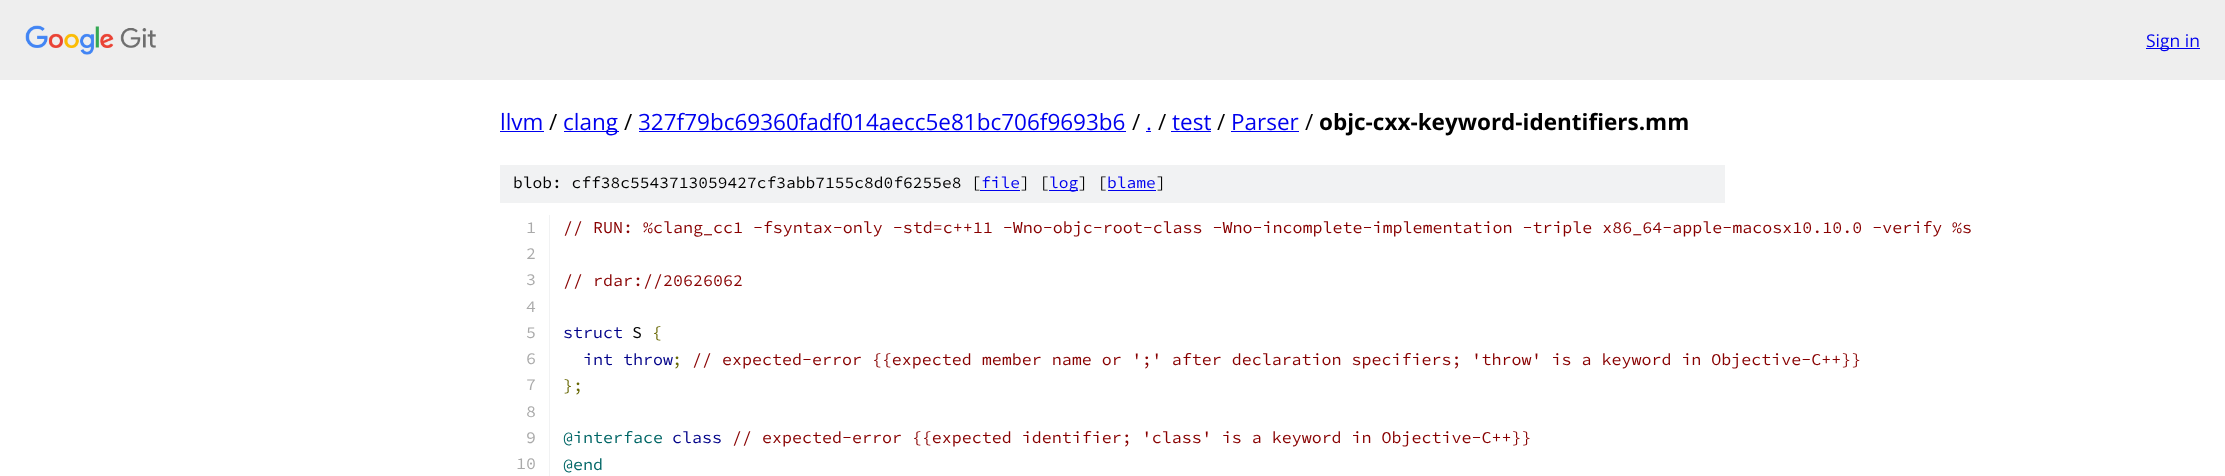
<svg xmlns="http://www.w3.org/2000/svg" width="2225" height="476">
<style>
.a{font:17.5px Open Sans;fill:#00e}
.b{font:22.5px Open Sans;fill:#00e}
.c{font:22.5px Open Sans;fill:#000}
.d{font:bold 22.5px Open Sans;fill:#000}
.e{font:200 16.25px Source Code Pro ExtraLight;fill:#000}
.f{font:200 16.25px Source Code Pro ExtraLight;fill:#00e}
.g{font:200 16.67px Source Code Pro ExtraLight;fill:#aaa}
.h{font:200 16.67px Source Code Pro ExtraLight;fill:#800}
.i{font:200 16.67px Source Code Pro ExtraLight;fill:#008}
.j{font:200 16.67px Source Code Pro ExtraLight;fill:#000}
.k{font:200 16.67px Source Code Pro ExtraLight;fill:#660}
.l{font:200 16.67px Source Code Pro ExtraLight;fill:#066}
</style>
<rect width="100%" height="100%" fill="#fff"/>
<path fill="#eee" d="M0 0h2225v80H0z"/>
<image href="1.png" x="25" y="25" width="131" height="30"/>
<path fill="#00e" d="M2146 48h54v1H2146z"/>
<path fill="#00e" d="M500 131h44v1H500z"/>
<path fill="#00e" d="M564 131h55v1H564z"/>
<path fill="#00e" d="M639 131h487v1H639z"/>
<path fill="#00e" d="M1146 131h5v1H1146z"/>
<path fill="#00e" d="M1171 131h40v1H1171z"/>
<path fill="#00e" d="M1231 131h68v1H1231z"/>
<path fill="#f1f2f3" d="M500 165h1225v38H500z"/>
<path fill="#00e" d="M980 190h40v1H980z"/>
<path fill="#00e" d="M1049 190h29v1H1049z"/>
<path fill="#00e" d="M1108 190h48v1H1108z"/>
<path fill="#f1f2f3" d="M549 215h1v261H549z"/>
<text class="a" x="2146" y="47">Sign in</text>
<text class="b" x="500" y="130">llvm</text>
<text class="c" x="549" y="130">/</text>
<text class="b" x="563" y="130">clang</text>
<text class="c" x="624" y="130">/</text>
<text class="b" x="638" y="130">327f79bc69360fadf014aecc5e81bc706f9693b6</text>
<text class="c" x="1132" y="130">/</text>
<text class="b" x="1146" y="130">.</text>
<text class="c" x="1158" y="130">/</text>
<text class="b" x="1172" y="130">test</text>
<text class="c" x="1217" y="130">/</text>
<text class="b" x="1231" y="130">Parser</text>
<text class="c" x="1305" y="130">/</text>
<text class="d" x="1319" y="130">objc-cxx-keyword-identifiers.mm</text>
<text class="e" x="513" y="188">blob: cff38c5543713059427cf3abb7155c8d0f6255e8 [</text>
<text class="f" x="981" y="188">file</text>
<text class="e" x="1020" y="188">] [</text>
<text class="f" x="1049" y="188">log</text>
<text class="e" x="1078" y="188">] [</text>
<text class="f" x="1107" y="188">blame</text>
<text class="e" x="1156" y="188">]</text>
<text class="g" x="526" y="233">1</text>
<text class="h" x="563" y="233">// RUN: %clang_cc1 -fsyntax-only -std=c++11 -Wno-objc-root-class -Wno-incomplete-implementation -triple x86_64-apple-macosx10.10.0 -verify %s</text>
<text class="g" x="526" y="259">2</text>
<text class="g" x="526" y="285">3</text>
<text class="h" x="563" y="286">// rdar://20626062</text>
<text class="g" x="526" y="312">4</text>
<text class="g" x="526" y="338">5</text>
<text class="i" x="563" y="338">struct</text>
<text class="j" x="632" y="338">S</text>
<text class="k" x="652" y="338">{</text>
<text class="g" x="526" y="364">6</text>
<text class="i" x="583" y="365">int throw</text>
<text class="k" x="672" y="365">;</text>
<text class="h" x="692" y="365">// expected-error {{expected member name or ';' after declaration specifiers; 'throw' is a keyword in Objective-C++}}</text>
<text class="g" x="526" y="390">7</text>
<text class="k" x="563" y="391">};</text>
<text class="g" x="526" y="417">8</text>
<text class="g" x="526" y="443">9</text>
<text class="l" x="563" y="443">@interface</text>
<text class="i" x="672" y="443">class</text>
<text class="h" x="732" y="443">// expected-error {{expected identifier; 'class' is a keyword in Objective-C++}}</text>
<text class="g" x="516" y="469">10</text>
<text class="l" x="563" y="470">@end</text>
</svg>
